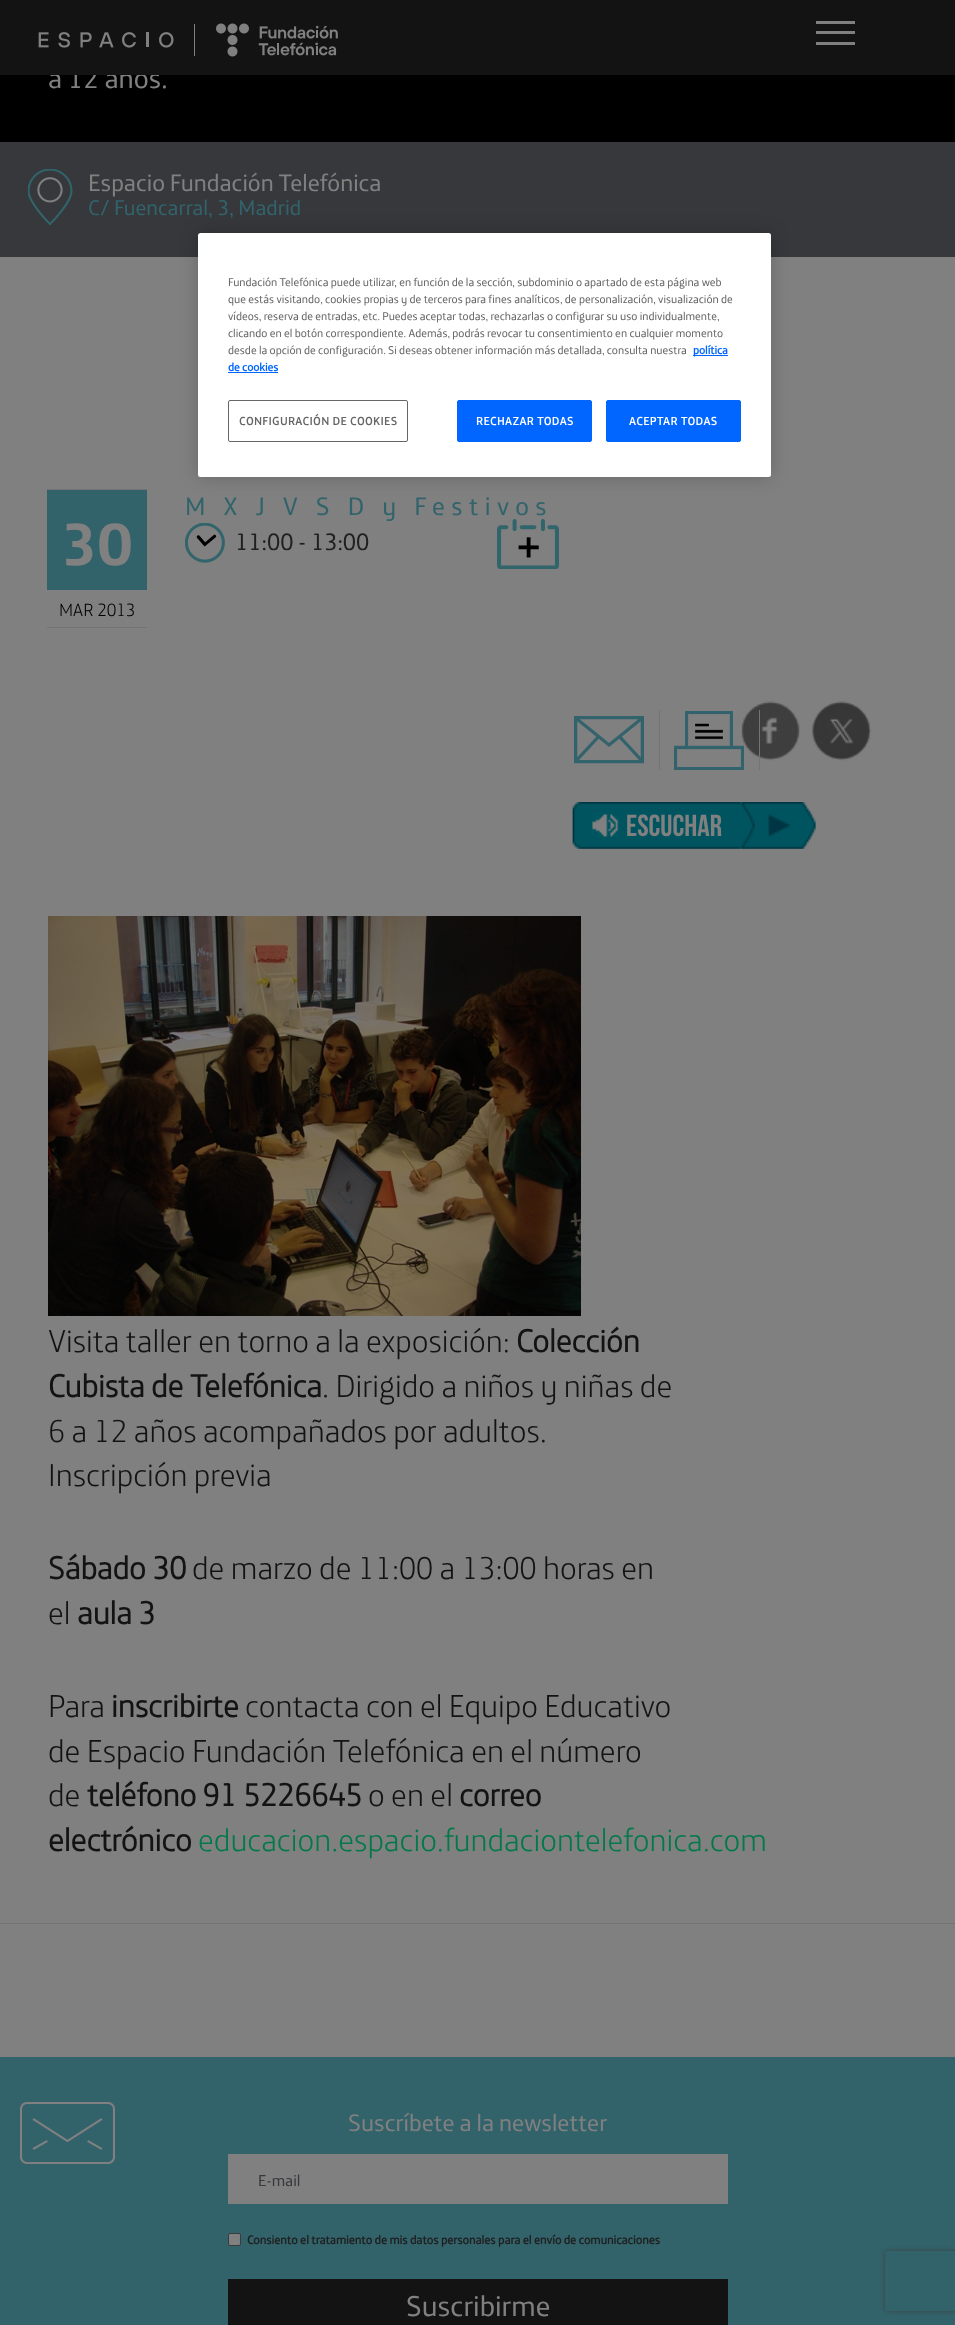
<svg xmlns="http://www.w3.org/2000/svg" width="955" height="2325">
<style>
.a{font:28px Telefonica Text;fill:#808080}
.b{font:24px Telefonica Text;fill:#808080}
.c{font:21.5px Telefonica Text;fill:#32636b}
.d{font:bold 60px Telefonica Text;fill:#808080}
.e{font:300 18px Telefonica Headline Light;fill:#000}
.f{font:25.6px Telefonica Text;letter-spacing:6.4px;fill:#32636b}
.g{font:24px Telefonica Text;fill:#202020}
.h{font:bold 30.5px Bebas Neue;fill:#808080}
.i{font:300 32px Telefonica Headline Light;fill:#131313}
.j{font:bold 32px Telefonica Headline Light;fill:#131313}
.k{font:300 32px Telefonica Headline Light;fill:#017949}
.l{font:16px Telefonica Text;fill:#36383b}
.m{font:bold 12px 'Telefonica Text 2';fill:#202020}
.n{font:29px Telefonica Text;fill:#808080}
.o{font:11.4px Telefonica Text;fill:#666}
.p{font:bold 11.4px 'Telefonica Text 2';fill:#06f}
.q{font:bold 11.4px 'Telefonica Text 2';letter-spacing:0.6px;fill:#666}
.r{font:bold 11.4px 'Telefonica Text 2';letter-spacing:0.6px;fill:#fff}
</style>
<defs>
<clipPath id="clip1"><path d="M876 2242h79v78h-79zm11 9h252c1 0 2 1 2 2v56c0 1-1 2-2 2h-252c-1 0-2-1-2-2v-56c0-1 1-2 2-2z" clip-rule="evenodd"/></clipPath>
</defs>
<rect width="100%" height="100%" fill="#808080"/>
<path fill="#000" d="M0 75h955v67H0z"/>
<path fill="#36383b" d="M0 142h955v115H0z"/>
<image href="2.png" x="28" y="169" width="45" height="56"/>
<path fill="#747474" d="M47 489h100v1H47z"/>
<path fill="#747474" d="M47 627h100v1H47z"/>
<path fill="#32636b" d="M47 490h100v100H47z"/>
<image href="3.png" x="185" y="523" width="40" height="40"/>
<image href="4.png" x="497" y="519" width="62" height="50"/>
<image href="5.png" x="574" y="716" width="70" height="48"/>
<path fill="#747474" d="M659 710h1v60H659z"/>
<image href="7.png" x="741" y="701" width="59" height="60"/>
<image href="6.png" x="674" y="711" width="70" height="59"/>
<path fill="#747474" d="M759 710h1v60H759z"/>
<image href="8.png" x="812" y="701" width="60" height="60"/>
<image href="9.png" x="572" y="802" width="168" height="47"/>
<image href="10.png" x="592" y="814" width="27" height="23"/>
<image href="11.png" x="740" y="802" width="76" height="47"/>
<image href="12.png" x="48" y="916" width="533" height="400"/>
<path fill="#747474" d="M0 1923h955v1H0z"/>
<path fill="#32636b" d="M0 2057h955v268H0z"/>
<image href="13.png" x="20" y="2102" width="95" height="62"/>
<path fill="#808080" d="M228 2154h500v50H228z"/>
<rect fill="#808080" stroke="#3b3b3b" x="228.5" y="2233.5" width="12" height="12" rx="1.5"/>
<path fill="#131313" d="M228 2279h500v46H228z"/>
<rect fill="#00000033" filter="blur(9px)" x="198" y="233" width="573" height="244" rx="2.5"/>
<rect fill="#fff" x="198" y="233" width="573" height="244" rx="2.5"/>
<path fill="#06f" d="M693 355h35v1H693z"/>
<path fill="#06f" d="M228 372h50v1H228z"/>
<rect fill="none" stroke="#666" x="228.5" y="400.5" width="179" height="41" rx="1.5"/>
<rect fill="#06f" stroke="#06f" x="457.5" y="400.5" width="134" height="41" rx="1.5"/>
<rect fill="#06f" stroke="#06f" x="606.5" y="400.5" width="134" height="41" rx="1.5"/>
<g clip-path="url(#clip1)">
<rect fill="#404040" filter="blur(2.5px)" x="885" y="2251" width="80" height="60" rx="2"/>
</g>
<text class="a" x="48" y="88">a 12 años.</text>
<path fill="#131313" d="M0 0h955v75H0z"/>
<path fill="#808080" d="M816 42h39v3H816z"/>
<path fill="#808080" d="M816 21h39v3H816z"/>
<path fill="#808080" d="M816 31h39v3H816z"/>
<image href="1.png" x="38" y="23" width="300" height="34"/>
<text class="b" x="88" y="191">Espacio Fundación Telefónica</text>
<text class="c" x="88" y="215">C/ Fuencarral, 3, Madrid</text>
<text class="d" x="61" y="565">30</text>
<text class="e" x="59" y="616">MAR 2013</text>
<text class="f" x="185" y="515">M X J V S D y Festivos</text>
<text class="g" x="235" y="550">11:00 - 13:00</text>
<text class="h" x="626" y="836">ESCUCHAR</text>
<text class="i" x="48" y="1352">Visita taller en torno a la exposición:</text>
<text class="j" x="516" y="1352">Colección</text>
<text class="j" x="48" y="1397">Cubista de Telefónica</text>
<text class="i" x="322" y="1397">. Dirigido a niños y niñas de</text>
<text class="i" x="48" y="1442">6 a 12 años acompañados por adultos.</text>
<text class="i" x="48" y="1486">Inscripción previa</text>
<text class="j" x="48" y="1579">Sábado 30</text>
<text class="i" x="192" y="1579">de marzo de 11:00 a 13:00 horas en</text>
<text class="i" x="48" y="1624">el</text>
<text class="j" x="77" y="1624">aula 3</text>
<text class="i" x="48" y="1717">Para</text>
<text class="j" x="111" y="1717">inscribirte</text>
<text class="i" x="245" y="1717">contacta con el Equipo Educativo</text>
<text class="i" x="48" y="1762">de Espacio Fundación Telefónica en el número</text>
<text class="i" x="48" y="1806">de</text>
<text class="j" x="87" y="1806">teléfono 91 5226645</text>
<text class="i" x="368" y="1806">o en el</text>
<text class="j" x="459" y="1806">correo</text>
<text class="j" x="48" y="1851">electrónico</text>
<text class="k" x="198" y="1851">educacion.espacio.fundaciontelefonica.com</text>
<text class="b" x="348" y="2131">Suscríbete a la newsletter</text>
<text class="l" x="258" y="2186">E-mail</text>
<text class="m" x="247" y="2244">Consiento el tratamiento de mis datos personales para el envío de comunicaciones</text>
<text class="n" x="406" y="2316">Suscribirme</text>
<text class="o" x="228" y="286">Fundación Telefónica puede utilizar, en función de la sección, subdominio o apartado de esta página web</text>
<text class="o" x="228" y="303">que estás visitando, cookies propias y de terceros para fines analíticos, de personalización, visualización de</text>
<text class="o" x="228" y="320">vídeos, reserva de entradas, etc. Puedes aceptar todas, rechazarlas o configurar su uso individualmente,</text>
<text class="o" x="228" y="337">clicando en el botón correspondiente. Además, podrás revocar tu consentimiento en cualquier momento</text>
<text class="o" x="228" y="354">desde la opción de configuración. Si deseas obtener información más detallada, consulta nuestra</text>
<text class="p" x="693" y="354">política</text>
<text class="p" x="228" y="371">de cookies</text>
<text class="q" x="239" y="425">CONFIGURACIÓN DE COOKIES</text>
<text class="r" x="476" y="425">RECHAZAR TODAS</text>
<text class="r" x="629" y="425">ACEPTAR TODAS</text>
</svg>
